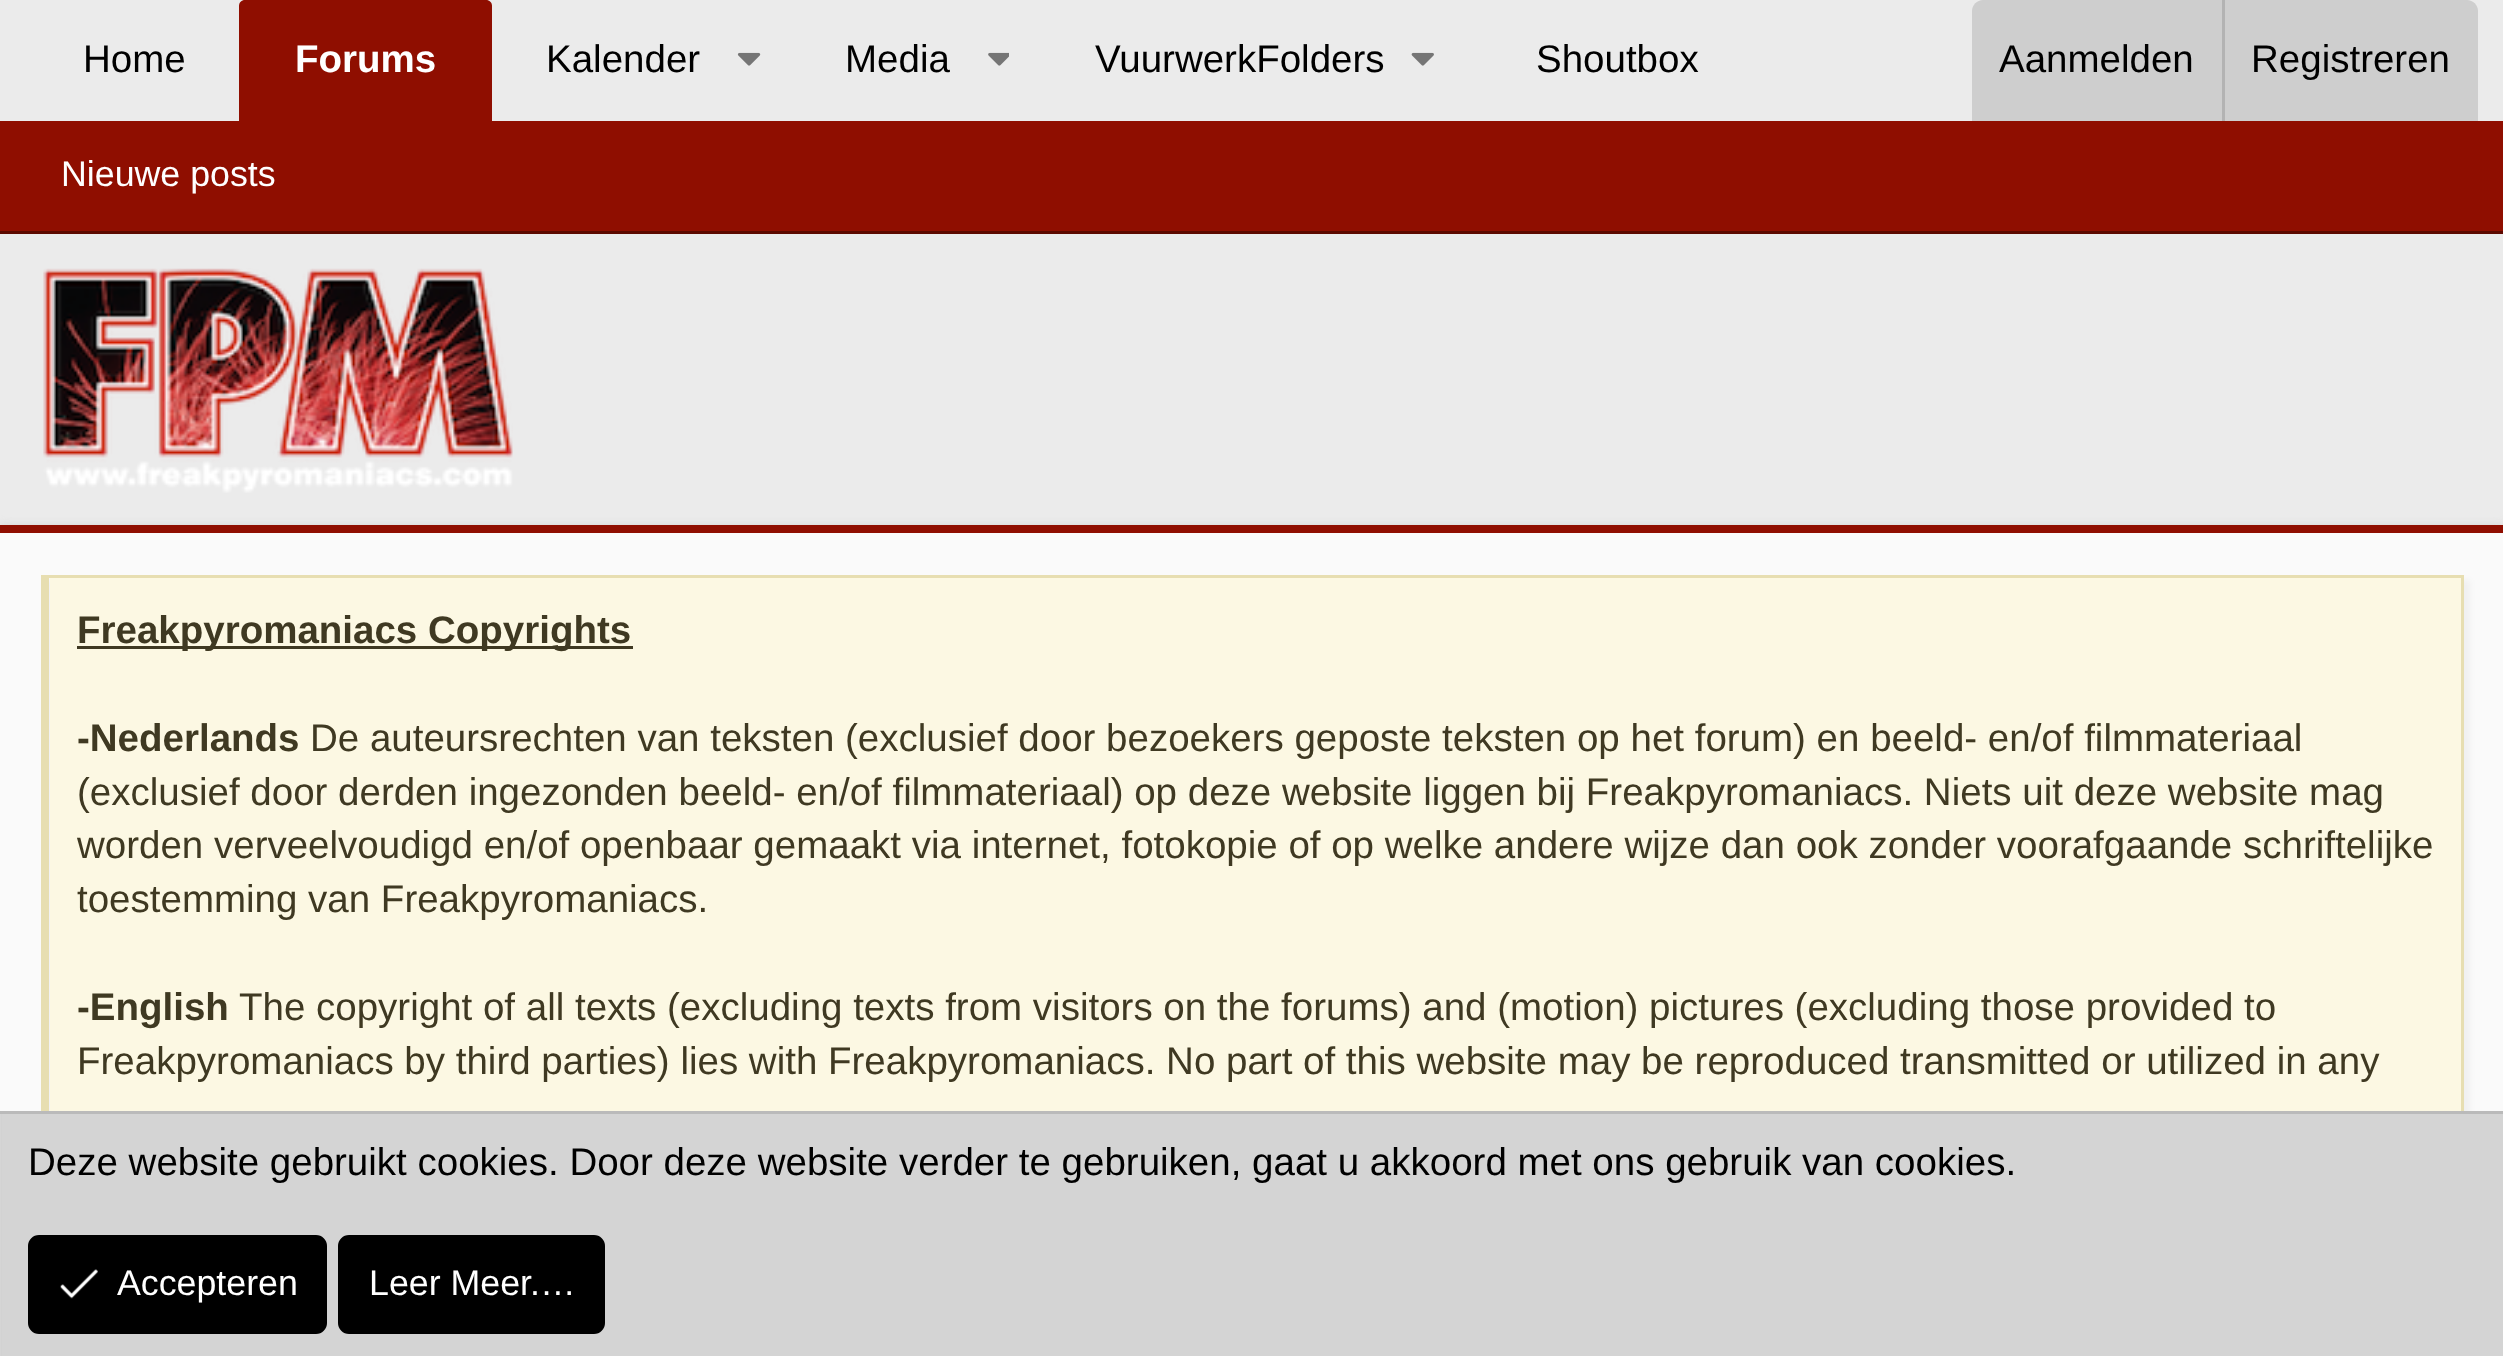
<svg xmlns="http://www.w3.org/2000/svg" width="2503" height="1356">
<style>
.a{font:38.5px Liberation Sans;fill:#000}
.b{font:bold 38.5px Liberation Sans;fill:#fff}
.c{font:35.75px Liberation Sans;fill:#fff}
.d{font:bold 38.5px Liberation Sans;fill:#3f3922}
.e{font:38.5px Liberation Sans;fill:#3f3922}
</style>
<rect width="100%" height="100%" fill="#ebebeb"/>
<path fill="#8f0e00" d="M245 0h241c3.5 0 6 2.5 6 6v115h-253v-115c0-3.5 2.5-6 6-6z"/>
<image href="1.png" x="737" y="52" width="24" height="14"/>
<image href="2.png" x="988" y="52" width="21" height="14"/>
<image href="3.png" x="1411" y="52" width="23" height="14"/>
<path fill="#cecece" d="M1983 0h484c6 0 11 5 11 11v110h-506v-110c0-6 5-11 11-11z"/>
<path fill="#b3b3b3" d="M2222 0h3v121H2222z"/>
<path fill="#8f0e00" d="M0 121h2503v110H0z"/>
<path fill="#5c0900" d="M0 231h2503v3H0z"/>
<image href="4.png" x="43" y="268" width="470" height="225"/>
<path fill="#c2c2c2" filter="blur(5.5px)" d="M0 528h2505v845H0z"/>
<path fill="#fafafa" d="M0 533h2503v578H0z"/>
<path fill="#8f0e00" d="M0 525h2503v8H0z"/>
<path fill="#0000000a" filter="blur(3px)" d="M47 580h2423v600H47z"/>
<path fill="#fcf8e3" d="M50 578h2411v533H50z"/>
<path fill="#e7deb1" d="M41 575h2423v3H41z"/>
<path fill="#e7deb1" d="M2461 575h3v536H2461z"/>
<path fill="#e7deb1" d="M41 575h8v536H41z"/>
<path fill="#3f3922" d="M77 646h556v3H77z"/>
<path fill="#d4d4d4" d="M2 1114h2501v242H2z"/>
<path fill="#bababa" d="M0 1111h2503v3H0z"/>
<rect fill="#000" stroke="#000" stroke-width="3" x="29.5" y="1236.5" width="296" height="96" rx="9.5"/>
<image href="5.png" x="60" y="1269" width="38" height="30"/>
<rect fill="#000" stroke="#000" stroke-width="3" x="339.5" y="1236.5" width="264" height="96" rx="9.5"/>
<text class="a" x="83" y="72">Home</text>
<text class="b" x="295" y="72">Forums</text>
<text class="a" x="546" y="72">Kalender</text>
<text class="a" x="845" y="72">Media</text>
<text class="a" x="1095" y="72">VuurwerkFolders</text>
<text class="a" x="1536" y="72">Shoutbox</text>
<text class="a" x="1999" y="72">Aanmelden</text>
<text class="a" x="2251" y="72">Registreren</text>
<text class="c" x="61" y="186">Nieuwe posts</text>
<text class="d" x="77" y="643">Freakpyromaniacs Copyrights</text>
<text class="d" x="77" y="751">-Nederlands</text>
<text class="e" x="310" y="751">De auteursrechten van teksten (exclusief door bezoekers geposte teksten op het forum) en beeld- en/of filmmateriaal</text>
<text class="e" x="77" y="805">(exclusief door derden ingezonden beeld- en/of filmmateriaal) op deze website liggen bij Freakpyromaniacs. Niets uit deze website mag</text>
<text class="e" x="77" y="858">worden verveelvoudigd en/of openbaar gemaakt via internet, fotokopie of op welke andere wijze dan ook zonder voorafgaande schriftelijke</text>
<text class="e" x="77" y="912">toestemming van Freakpyromaniacs.</text>
<text class="d" x="77" y="1020">-English</text>
<text class="e" x="239" y="1020">The copyright of all texts (excluding texts from visitors on the forums) and (motion) pictures (excluding those provided to</text>
<text class="e" x="77" y="1074">Freakpyromaniacs by third parties) lies with Freakpyromaniacs. No part of this website may be reproduced transmitted or utilized in any</text>
<text class="a" x="28" y="1175">Deze website gebruikt cookies. Door deze website verder te gebruiken, gaat u akkoord met ons gebruik van cookies.</text>
<text class="c" x="117" y="1295">Accepteren</text>
<text class="c" x="369" y="1295">Leer Meer.…</text>
</svg>
